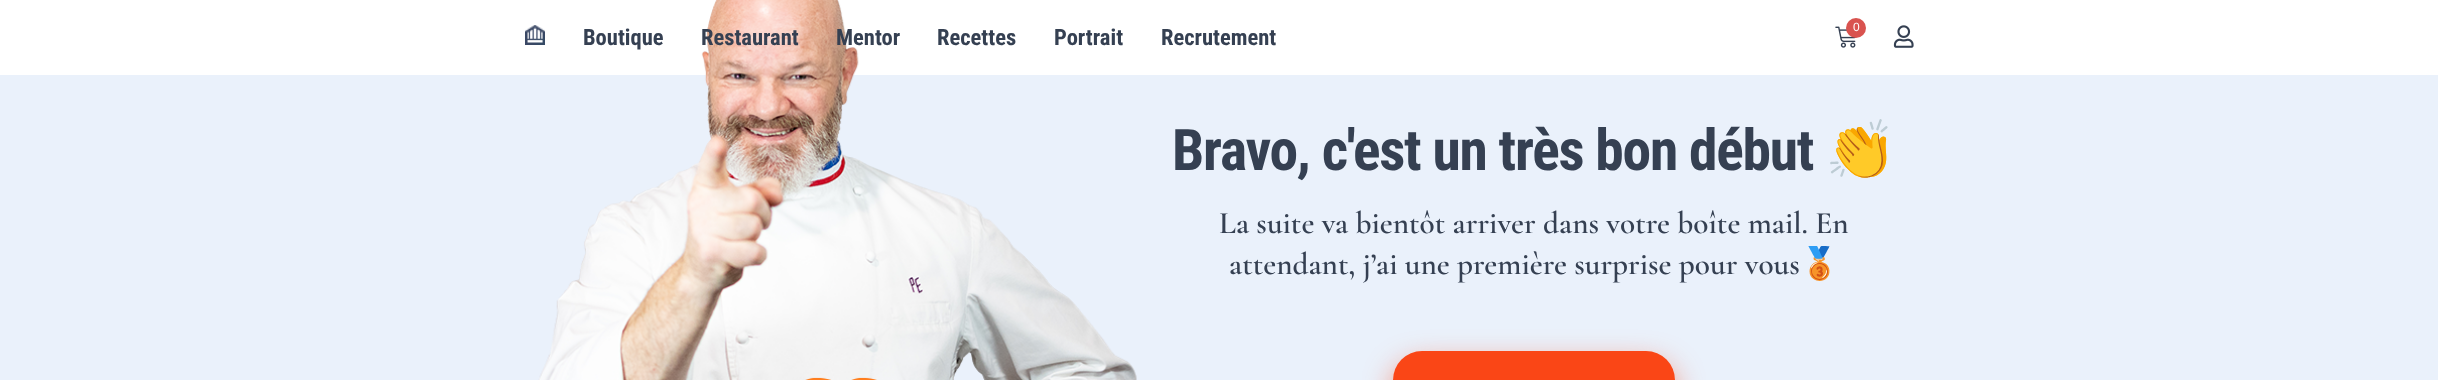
<svg xmlns="http://www.w3.org/2000/svg" width="2438" height="380">
<style>
.a{font:bold 22.5px Roboto Condensed;fill:#354052}
.b{font:12px Liberation Sans;fill:#fff}
.c{font:bold 57.5px Roboto Condensed;letter-spacing:-1.25px;fill:#354052}
.d{font:bold 57.5px Noto Color Emoji;letter-spacing:-1.25px;fill:#354052}
.e{font:600 31.25px Cormorant Garamond;fill:#354052}
.f{font:bold 31.25px Noto Color Emoji;fill:#354052}
</style>
<rect width="100%" height="100%" fill="#eaf1fb"/>
<path fill="#fff" d="M0 0h2438v75H0z"/>
<image href="1.png" x="525" y="25" width="20" height="20"/>
<image href="2.png" x="1835" y="26" width="22" height="22"/>
<circle fill="#d9534f" cx="1856" cy="28" r="10"/>
<image href="3.png" x="1893" y="25" width="21" height="23"/>
<image href="4.png" x="538" y="0" width="599" height="380"/>
<rect fill="#fa461699" filter="blur(15px)" x="1393" y="364" width="282" height="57" rx="28.5"/>
<rect fill="#fa4616" x="1393" y="351" width="282" height="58" rx="29"/>
<text class="a" x="583" y="45">Boutique</text>
<text class="a" x="701" y="45">Restaurant</text>
<text class="a" x="836" y="45">Mentor</text>
<text class="a" x="937" y="45">Recettes</text>
<text class="a" x="1054" y="45">Portrait</text>
<text class="a" x="1161" y="45">Recrutement</text>
<text class="b" x="1853" y="31">0</text>
<text class="c" x="1172" y="170">Bravo, c'est un très bon début</text>
<text class="d" x="1825" y="170">👏</text>
<text class="e" x="1219" y="233">La suite va bientôt arriver dans votre boîte mail. En</text>
<text class="e" x="1229" y="274">attendant, j’ai une première surprise pour vous</text>
<text class="f" x="1800" y="274">🥉</text>
</svg>
